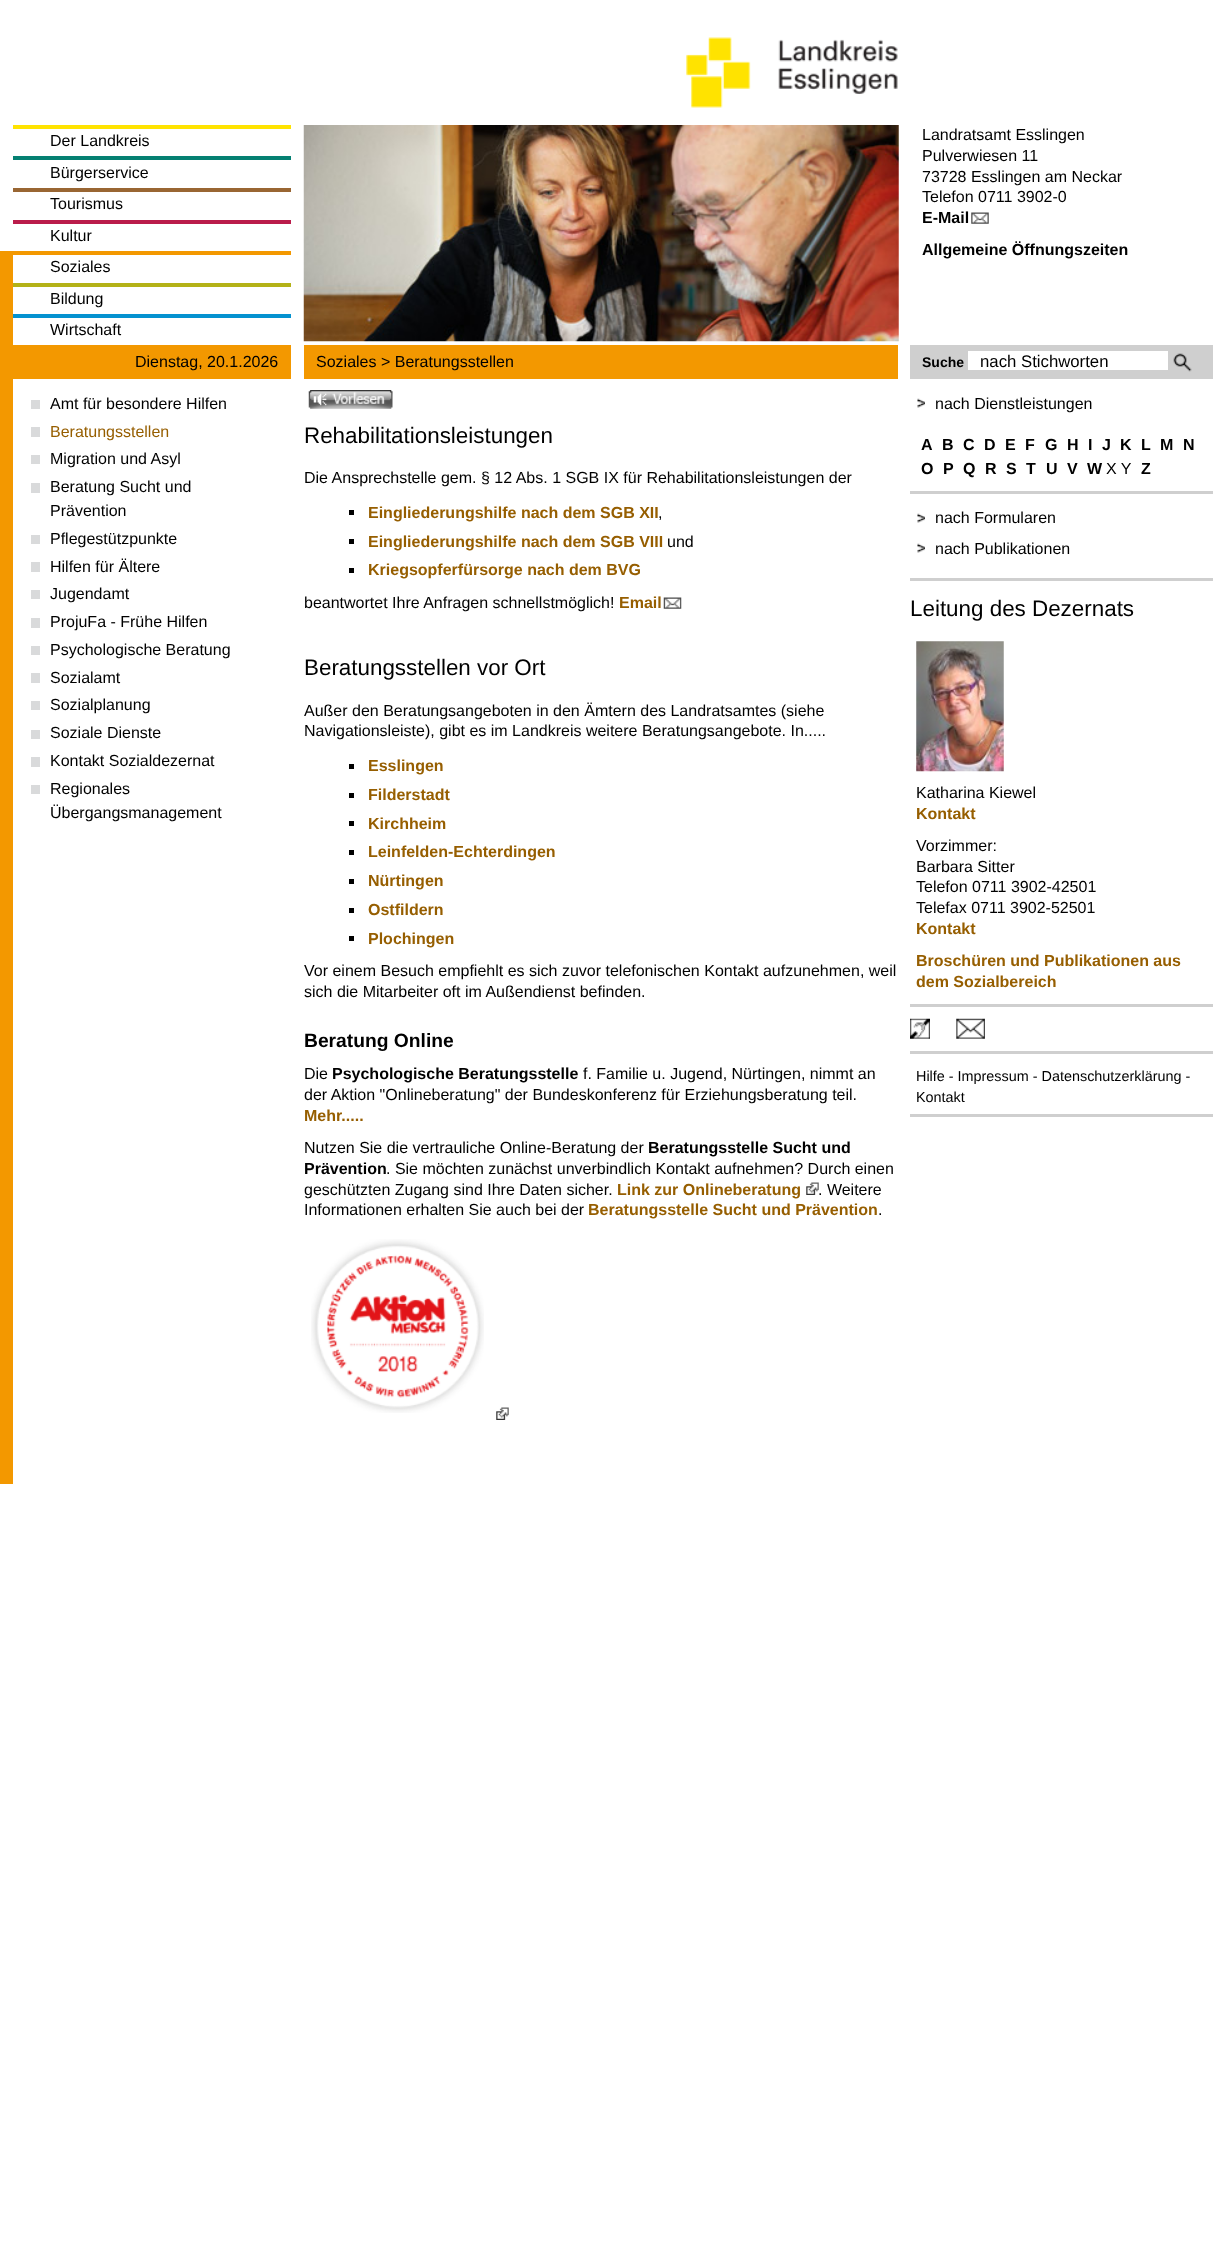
<svg xmlns="http://www.w3.org/2000/svg" width="1221" height="2246">
<style>
.a{font:16px Liberation Sans;fill:#000}
.b{font:bold 16px Liberation Sans;fill:#000}
.c{font:bold 14px Liberation Sans;fill:#000}
.d{font:16.75px Liberation Sans;fill:#000}
.e{font:16px Liberation Sans;fill:#965e00}
.f{font:22.4px Liberation Sans;fill:#000}
.g{font:bold 16px Liberation Sans;fill:#965e00}
.h{font:bold 19.25px Liberation Sans;fill:#000}
.i{font:14.4px Liberation Sans;fill:#000}
</style>
<rect width="100%" height="100%" fill="#fff"/>
<path fill="#ffe300" d="M13 125h278v4H13z"/>
<path fill="#048072" d="M13 156h278v4H13z"/>
<path fill="#963" d="M13 188h278v4H13z"/>
<path fill="#ba1c4b" d="M13 220h278v4H13z"/>
<path fill="#f39800" d="M0 251h13v94H0z"/>
<path fill="#f39800" d="M13 251h278v4H13z"/>
<path fill="#b4b217" d="M13 283h278v4H13z"/>
<path fill="#0492d0" d="M13 314h278v4H13z"/>
<image href="1.png" x="303" y="125" width="596" height="217"/>
<image href="2.png" x="686" y="37" width="212" height="71"/>
<image href="3.png" x="971" y="212" width="18" height="12"/>
<path fill="#f39800" d="M0 345h291v34H0z"/>
<path fill="#f39800" d="M304 345h594v34H304z"/>
<path fill="#cfcfcf" d="M910 345h303v34H910z"/>
<path fill="#fff" d="M968 351h200v19H968z"/>
<image href="4.png" x="1173" y="353" width="19" height="19"/>
<path fill="#f39800" d="M0 379h13v1105H0z"/>
<path fill="#d9dadb" d="M31 400h9v9H31z"/>
<path fill="#d9dadb" d="M31 427h9v10H31z"/>
<path fill="#d9dadb" d="M31 455h9v9H31z"/>
<path fill="#d9dadb" d="M31 483h9v10H31z"/>
<path fill="#d9dadb" d="M31 535h9v9H31z"/>
<path fill="#d9dadb" d="M31 562h9v10H31z"/>
<path fill="#d9dadb" d="M31 590h9v9H31z"/>
<path fill="#d9dadb" d="M31 618h9v10H31z"/>
<path fill="#d9dadb" d="M31 646h9v9H31z"/>
<path fill="#d9dadb" d="M31 673h9v10H31z"/>
<path fill="#d9dadb" d="M31 701h9v9H31z"/>
<path fill="#d9dadb" d="M31 730h9v9H31z"/>
<path fill="#d9dadb" d="M31 757h9v10H31z"/>
<path fill="#d9dadb" d="M31 785h9v9H31z"/>
<image href="5.png" x="308" y="390" width="85" height="19"/>
<path fill="#000" d="M349 510h5v5H349z"/>
<path fill="#000" d="M349 539h5v5H349z"/>
<path fill="#000" d="M349 568h5v5H349z"/>
<image href="6.png" x="663" y="597" width="19" height="12"/>
<path fill="#000" d="M349 764h5v5H349z"/>
<path fill="#000" d="M349 793h5v5H349z"/>
<path fill="#000" d="M349 821h5v5H349z"/>
<path fill="#000" d="M349 850h5v5H349z"/>
<path fill="#000" d="M349 879h5v5H349z"/>
<path fill="#000" d="M349 908h5v5H349z"/>
<path fill="#000" d="M349 936h5v5H349z"/>
<image href="7.png" x="806" y="1182" width="13" height="13"/>
<image href="8.png" x="311" y="1239" width="173" height="174"/>
<image href="7.png" x="496" y="1407" width="13" height="13"/>
<image href="9.png" x="917" y="398" width="8" height="10"/>
<path fill="#cfcfcf" d="M910 491h303v3H910z"/>
<image href="9.png" x="917" y="513" width="8" height="10"/>
<image href="9.png" x="917" y="543" width="8" height="10"/>
<path fill="#cfcfcf" d="M910 578h303v3H910z"/>
<image href="10.png" x="916" y="641" width="88" height="131"/>
<path fill="#cfcfcf" d="M910 1004h303v3H910z"/>
<image href="11.png" x="910" y="1018" width="20" height="21"/>
<image href="12.png" x="956" y="1018" width="29" height="21"/>
<path fill="#cfcfcf" d="M910 1051h303v3H910z"/>
<path fill="#cfcfcf" d="M910 1114h303v3H910z"/>
<text class="a" x="50" y="146">Der Landkreis</text>
<text class="a" x="50" y="178">Bürgerservice</text>
<text class="a" x="50" y="209">Tourismus</text>
<text class="a" x="50" y="241">Kultur</text>
<text class="a" x="50" y="272">Soziales</text>
<text class="a" x="50" y="304">Bildung</text>
<text class="a" x="50" y="335">Wirtschaft</text>
<text class="a" x="922" y="140">Landratsamt Esslingen</text>
<text class="a" x="922" y="161">Pulverwiesen 11</text>
<text class="a" x="922" y="182">73728 Esslingen am Neckar</text>
<text class="a" x="922" y="202">Telefon 0711 3902-0</text>
<text class="b" x="922" y="223">E-Mail</text>
<text class="b" x="922" y="255">Allgemeine Öffnungszeiten</text>
<text class="a" x="135" y="367">Dienstag, 20.1.2026</text>
<text class="a" x="316" y="367">Soziales &gt; Beratungsstellen</text>
<text class="c" x="922" y="367">Suche</text>
<text class="d" x="980" y="367">nach Stichworten</text>
<text class="a" x="50" y="409">Amt für besondere Hilfen</text>
<text class="e" x="50" y="437">Beratungsstellen</text>
<text class="a" x="50" y="464">Migration und Asyl</text>
<text class="a" x="50" y="492">Beratung Sucht und</text>
<text class="a" x="50" y="516">Prävention</text>
<text class="a" x="50" y="544">Pflegestützpunkte</text>
<text class="a" x="50" y="572">Hilfen für Ältere</text>
<text class="a" x="50" y="599">Jugendamt</text>
<text class="a" x="50" y="627">ProjuFa - Frühe Hilfen</text>
<text class="a" x="50" y="655">Psychologische Beratung</text>
<text class="a" x="50" y="683">Sozialamt</text>
<text class="a" x="50" y="710">Sozialplanung</text>
<text class="a" x="50" y="738">Soziale Dienste</text>
<text class="a" x="50" y="766">Kontakt Sozialdezernat</text>
<text class="a" x="50" y="794">Regionales</text>
<text class="a" x="50" y="818">Übergangsmanagement</text>
<text class="f" x="304" y="443">Rehabilitationsleistungen</text>
<text class="a" x="304" y="483">Die Ansprechstelle gem. § 12 Abs. 1 SGB IX für Rehabilitationsleistungen der</text>
<text class="g" x="368" y="518">Eingliederungshilfe nach dem SGB XII</text>
<text class="a" x="658" y="518">,</text>
<text class="g" x="368" y="547">Eingliederungshilfe nach dem SGB VIII</text>
<text class="a" x="667" y="547">und</text>
<text class="g" x="368" y="575">Kriegsopferfürsorge nach dem BVG</text>
<text class="a" x="304" y="608">beantwortet Ihre Anfragen schnellstmöglich!</text>
<text class="g" x="619" y="608">Email</text>
<text class="f" x="304" y="675">Beratungsstellen vor Ort</text>
<text class="a" x="304" y="716">Außer den Beratungsangeboten in den Ämtern des Landratsamtes (siehe</text>
<text class="a" x="304" y="736">Navigationsleiste), gibt es im Landkreis weitere Beratungsangebote. In.....</text>
<text class="g" x="368" y="771">Esslingen</text>
<text class="g" x="368" y="800">Filderstadt</text>
<text class="g" x="368" y="829">Kirchheim</text>
<text class="g" x="368" y="857">Leinfelden-Echterdingen</text>
<text class="g" x="368" y="886">Nürtingen</text>
<text class="g" x="368" y="915">Ostfildern</text>
<text class="g" x="368" y="944">Plochingen</text>
<text class="a" x="304" y="976">Vor einem Besuch empfiehlt es sich zuvor telefonischen Kontakt aufzunehmen, weil</text>
<text class="a" x="304" y="997">sich die Mitarbeiter oft im Außendienst befinden.</text>
<text class="h" x="304" y="1047">Beratung Online</text>
<text class="a" x="304" y="1079">Die</text>
<text class="b" x="332" y="1079">Psychologische Beratungsstelle</text>
<text class="a" x="583" y="1079">f. Familie u. Jugend, Nürtingen, nimmt an</text>
<text class="a" x="304" y="1100">der Aktion "Onlineberatung" der Bundeskonferenz für Erziehungsberatung teil.</text>
<text class="g" x="304" y="1121">Mehr.....</text>
<text class="a" x="304" y="1153">Nutzen Sie die vertrauliche Online-Beratung der</text>
<text class="b" x="648" y="1153">Beratungsstelle Sucht und</text>
<text class="b" x="304" y="1174">Prävention</text>
<text class="a" x="386" y="1174">. Sie möchten zunächst unverbindlich Kontakt aufnehmen? Durch einen</text>
<text class="a" x="304" y="1195">geschützten Zugang sind Ihre Daten sicher.</text>
<text class="g" x="617" y="1195">Link zur Onlineberatung</text>
<text class="a" x="818" y="1195">. Weitere</text>
<text class="a" x="304" y="1215">Informationen erhalten Sie auch bei der</text>
<text class="g" x="588" y="1215">Beratungsstelle Sucht und Prävention</text>
<text class="a" x="878" y="1215">.</text>
<text class="a" x="935" y="409">nach Dienstleistungen</text>
<text class="b" x="921" y="450">A</text>
<text class="b" x="942" y="450">B</text>
<text class="b" x="963" y="450">C</text>
<text class="b" x="984" y="450">D</text>
<text class="b" x="1005" y="450">E</text>
<text class="b" x="1025" y="450">F</text>
<text class="b" x="1045" y="450">G</text>
<text class="b" x="1067" y="450">H</text>
<text class="b" x="1088" y="450">I</text>
<text class="b" x="1102" y="450">J</text>
<text class="b" x="1120" y="450">K</text>
<text class="b" x="1141" y="450">L</text>
<text class="b" x="1160" y="450">M</text>
<text class="b" x="1183" y="450">N</text>
<text class="b" x="921" y="474">O</text>
<text class="b" x="943" y="474">P</text>
<text class="b" x="963" y="474">Q</text>
<text class="b" x="985" y="474">R</text>
<text class="b" x="1006" y="474">S</text>
<text class="b" x="1026" y="474">T</text>
<text class="b" x="1046" y="474">U</text>
<text class="b" x="1067" y="474">V</text>
<text class="b" x="1087" y="474">W</text>
<text class="a" x="1106" y="474">X Y</text>
<text class="b" x="1141" y="474">Z</text>
<text class="a" x="935" y="523">nach Formularen</text>
<text class="a" x="935" y="554">nach Publikationen</text>
<text class="f" x="910" y="616">Leitung des Dezernats</text>
<text class="a" x="916" y="798">Katharina Kiewel</text>
<text class="g" x="916" y="819">Kontakt</text>
<text class="a" x="916" y="851">Vorzimmer:</text>
<text class="a" x="916" y="872">Barbara Sitter</text>
<text class="a" x="916" y="892">Telefon 0711 3902-42501</text>
<text class="a" x="916" y="913">Telefax 0711 3902-52501</text>
<text class="g" x="916" y="934">Kontakt</text>
<text class="g" x="916" y="966">Broschüren und Publikationen aus</text>
<text class="g" x="916" y="987">dem Sozialbereich</text>
<text class="i" x="916" y="1081">Hilfe - Impressum - Datenschutzerklärung -</text>
<text class="i" x="916" y="1102">Kontakt</text>
</svg>
